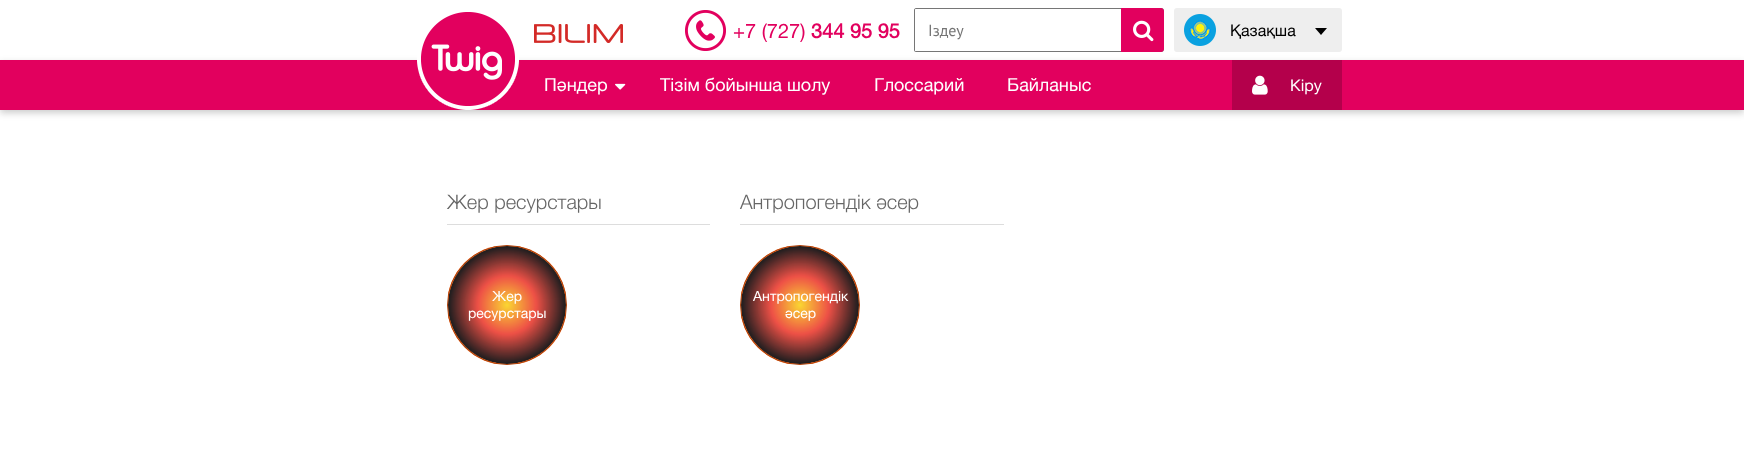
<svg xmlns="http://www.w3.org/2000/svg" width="1744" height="453">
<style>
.a{font:20px Helvetica Neue;fill:#e2005e}
.b{font:bold 20px Helvetica Neue;fill:#e2005e}
.c{font:16px PT Sans;fill:#757575}
.d{font:16px Helvetica Neue;fill:#000}
.e{font:18px Helvetica Neue;fill:#fff}
.f{font:16px Helvetica Neue;fill:#fff}
.g{font:300 20px Helvetica Neue;fill:#666}
.h{font:14px Helvetica Neue;fill:#fff}
</style>
<defs>
<clipPath id="clip1"><rect x="447" y="245" width="120" height="120" rx="60"/></clipPath>
<radialGradient id="g1" gradientUnits="userSpaceOnUse" cx="507" cy="305" r="83"><stop offset="0.5" stop-color="#fff"/><stop offset="0.72" stop-color="#f3702c"/></radialGradient>
<clipPath id="clip2"><rect x="740" y="245" width="120" height="120" rx="60"/></clipPath>
<radialGradient id="g2" gradientUnits="userSpaceOnUse" cx="800" cy="305" r="83"><stop offset="0.5" stop-color="#fff"/><stop offset="0.72" stop-color="#f3702c"/></radialGradient>
</defs>
<rect width="100%" height="100%" fill="#fff"/>
<image href="1.png" x="534" y="24" width="89" height="19"/>
<image href="2.png" x="685" y="10" width="41" height="41"/>
<path fill="#00000033" filter="blur(3.5px)" d="M0 63h1744v50H0z"/>
<path fill="#767676" fill-rule="evenodd" d="M916 8c-1 0-2 1-2 2v40c0 1 1 2 2 2h245c2 0 3-1 3-3v-38c0-2-1-3-3-3zm0 1c-1 0-1 0-1 1v40c0 1 0 1 1 1h246c1 0 1 0 1-1v-40c0-1 0-1-1-1z"/>
<path fill="#e2005e" d="M1121 8h40c1.5 0 3 1.5 3 3v38c0 1.5-1.5 3-3 3h-40z"/>
<image href="3.png" x="1133" y="20" width="21" height="22"/>
<rect fill="#eee" x="1174" y="8" width="168" height="44" rx="3"/>
<image href="4.png" x="1184" y="14" width="32" height="32"/>
<path fill="#000" d="M1315 28h12l-6 7z"/>
<path fill="#e2005e" d="M0 60h1744v50H0z"/>
<image href="5.png" x="417" y="12" width="102" height="98"/>
<image href="6.png" x="615" y="83" width="11" height="7"/>
<path fill="#b4004b" d="M1232 60h110v50H1232z"/>
<image href="7.png" x="1252" y="75" width="16" height="20"/>
<path fill="#ddd" d="M447 224h263v1H447z"/>
<g clip-path="url(#clip1)">
<path fill="url(#g1)" d="M448 246h118v118H448z"/>
</g>
<circle fill="none" stroke="#af420a" cx="507" cy="305" r="59.5"/>
<image href="8.png" x="448" y="246" width="118" height="118"/>
<path fill="#ddd" d="M740 224h264v1H740z"/>
<g clip-path="url(#clip2)">
<path fill="url(#g2)" d="M741 246h118v118H741z"/>
</g>
<circle fill="none" stroke="#af420a" cx="800" cy="305" r="59.5"/>
<image href="9.png" x="741" y="246" width="118" height="118"/>
<text class="a" x="733" y="38">+7 (727)</text>
<text class="b" x="811" y="38">344 95 95</text>
<text class="c" x="928" y="36">Іздеу</text>
<text class="d" x="1230" y="36">Қазақша</text>
<text class="e" x="544" y="91">Пәндер</text>
<text class="e" x="660" y="91">Тізім бойынша шолу</text>
<text class="e" x="874" y="91">Глоссарий</text>
<text class="e" x="1007" y="91">Байланыс</text>
<text class="f" x="1290" y="91">Кiру</text>
<text class="g" x="447" y="209">Жер ресурстары</text>
<text class="h" x="492" y="301">Жер</text>
<text class="h" x="468" y="318">ресурстары</text>
<text class="g" x="740" y="209">Антропогендік әсер</text>
<text class="h" x="753" y="301">Антропогендік</text>
<text class="h" x="785" y="318">әсер</text>
</svg>
